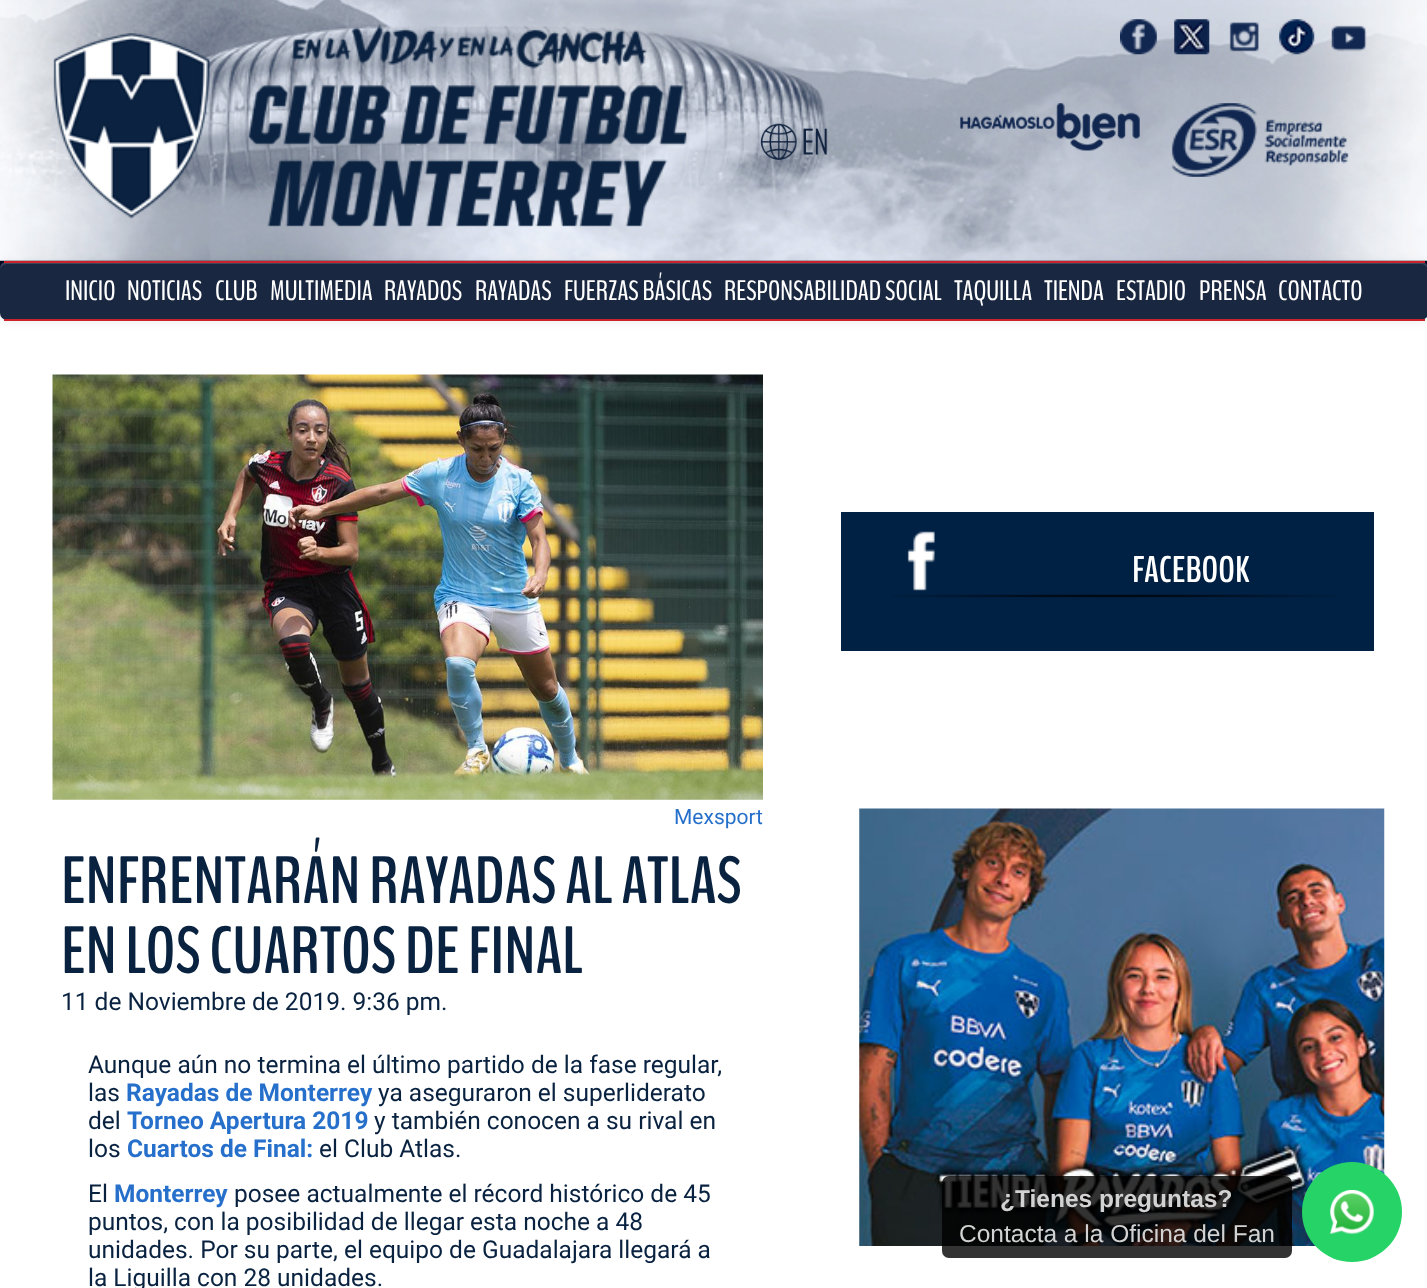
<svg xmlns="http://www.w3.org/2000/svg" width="1427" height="1288">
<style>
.a{font:28px BenchNine;fill:#fff}
.b{font:bold 37px BenchNine;fill:#fff}
.c{font:21px Roboto;fill:#2670cb}
.d{font:bold 66.5px BenchNine;fill:#092240}
.e{font:24.5px Roboto;fill:#092240}
.f{font:bold 24.5px Roboto;fill:#2670cb}
.g{font:bold 24.5px Liberation Sans;fill:#d2d2d2}
.h{font:24.5px Liberation Sans;fill:#d2d2d2}
</style>
<rect width="100%" height="100%" fill="#03061d"/>
<image href="1.png" x="0" y="313" width="1427" height="42"/>
<image href="2.png" x="0" y="0" width="1427" height="261"/>
<image href="3.png" x="53" y="23" width="634" height="204"/>
<image href="4.png" x="1120" y="19" width="37" height="36"/>
<image href="5.png" x="1174" y="19" width="36" height="36"/>
<image href="6.png" x="1229" y="22" width="30" height="30"/>
<image href="7.png" x="1279" y="19" width="36" height="36"/>
<image href="8.png" x="1331" y="25" width="36" height="27"/>
<image href="9.png" x="760" y="123" width="68" height="37"/>
<image href="10.png" x="960" y="103" width="180" height="48"/>
<image href="11.png" x="1171" y="103" width="178" height="74"/>
<rect fill="#00000012" filter="blur(4.5px)" y="263" width="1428" height="59" rx="7"/>
<rect fill="#1a2741" y="261" width="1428" height="59" rx="7"/>
<path fill="#3c475e" d="M7 264h1414c4 0 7 3 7 6c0-5-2-7-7-8h-1414c-5 1-7 3-7 8c0-3 3-6 7-6z"/>
<path fill="#cc2229" d="M4 261h1421v2H4z"/>
<path fill="#cc2229" d="M4 319h1421v2H4z"/>
<path fill="#fff" d="M0 355h1427v933H0z"/>
<path fill="#002144" d="M841 512h533v139H841z"/>
<image href="12.png" x="891" y="594" width="445" height="4"/>
<image href="13.png" x="907" y="531" width="28" height="60"/>
<image href="14.png" x="859" y="808" width="526" height="438"/>
<image href="15.png" x="52" y="374" width="711" height="426"/>
<rect fill="#000000cc" x="942" y="1176" width="350" height="82" rx="7"/>
<circle fill="#25d366" cx="1352" cy="1212" r="50"/>
<image href="16.png" x="1330" y="1190" width="44" height="44"/>
<text class="a" x="65" y="300">INICIO</text>
<text class="a" x="127" y="300">NOTICIAS</text>
<text class="a" x="215" y="300">CLUB</text>
<text class="a" x="270" y="300">MULTIMEDIA</text>
<text class="a" x="384" y="300">RAYADOS</text>
<text class="a" x="475" y="300">RAYADAS</text>
<text class="a" x="564" y="300">FUERZAS BÁSICAS</text>
<text class="a" x="724" y="300">RESPONSABILIDAD SOCIAL</text>
<text class="a" x="954" y="300">TAQUILLA</text>
<text class="a" x="1044" y="300">TIENDA</text>
<text class="a" x="1116" y="300">ESTADIO</text>
<text class="a" x="1199" y="300">PRENSA</text>
<text class="a" x="1278" y="300">CONTACTO</text>
<text class="b" x="1132" y="582">FACEBOOK</text>
<text class="c" x="674" y="824">Mexsport</text>
<text class="d" x="61" y="903">ENFRENTARÁN RAYADAS AL ATLAS</text>
<text class="d" x="61" y="973">EN LOS CUARTOS DE FINAL</text>
<text class="e" x="61" y="1010">11 de Noviembre de 2019. 9:36 pm.</text>
<text class="e" x="88" y="1073">Aunque aún no termina el último partido de la fase regular,</text>
<text class="e" x="88" y="1101">las</text>
<text class="f" x="126" y="1101">Rayadas de Monterrey</text>
<text class="e" x="378" y="1101">ya aseguraron el superliderato</text>
<text class="e" x="88" y="1129">del</text>
<text class="f" x="127" y="1129">Torneo Apertura 2019</text>
<text class="e" x="374" y="1129">y también conocen a su rival en</text>
<text class="e" x="88" y="1157">los</text>
<text class="f" x="127" y="1157">Cuartos de Final:</text>
<text class="e" x="319" y="1157">el Club Atlas.</text>
<text class="e" x="88" y="1202">El</text>
<text class="f" x="114" y="1202">Monterrey</text>
<text class="e" x="234" y="1202">posee actualmente el récord histórico de 45</text>
<text class="e" x="88" y="1230">puntos, con la posibilidad de llegar esta noche a 48</text>
<text class="e" x="88" y="1258">unidades. Por su parte, el equipo de Guadalajara llegará a</text>
<text class="e" x="88" y="1286">la Liguilla con 28 unidades.</text>
<text class="g" x="1000" y="1207">¿Tienes preguntas?</text>
<text class="h" x="959" y="1242">Contacta a la Oficina del Fan</text>
</svg>
